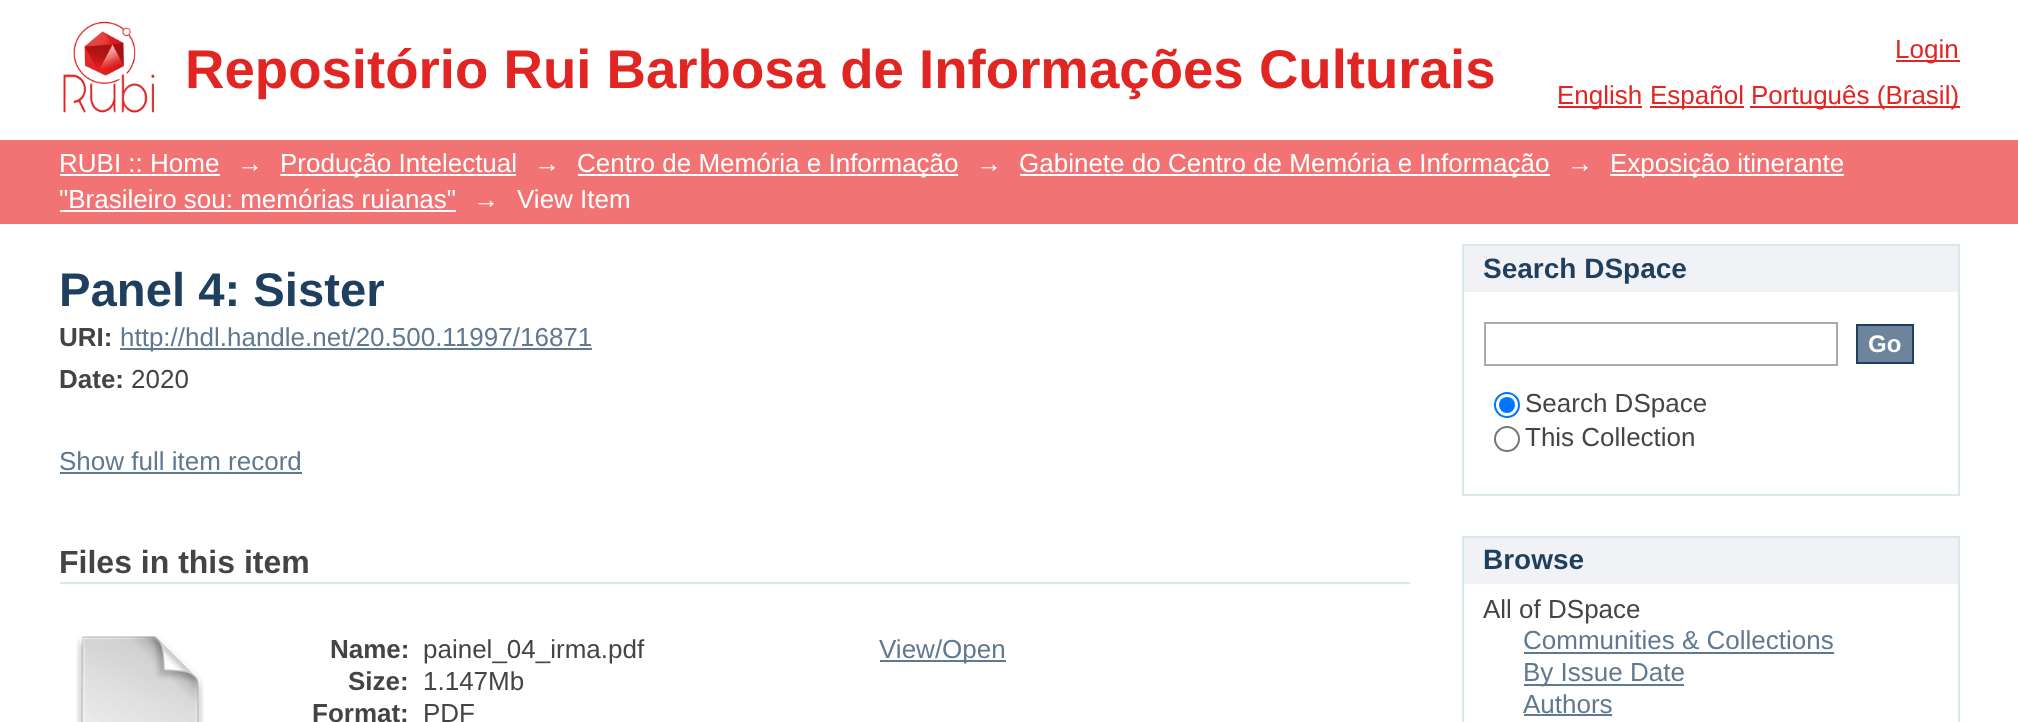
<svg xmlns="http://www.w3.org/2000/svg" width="2018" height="722">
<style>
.a{font:bold 54.6px Liberation Sans;fill:#e12523}
.b{font:26px Liberation Sans;fill:#e12523}
.c{font:26px Liberation Sans;fill:#fff}
.d{font:bold 47.25px Liberation Sans;fill:#1f3f5e}
.e{font:bold 26px Liberation Sans;fill:#444}
.f{font:26px Liberation Sans;fill:#607890}
.g{font:26px Liberation Sans;fill:#444}
.h{font:bold 32px Liberation Sans;fill:#444}
.i{font:bold 28px Liberation Sans;fill:#1f3f5e}
.j{font:bold 24px Liberation Sans;fill:#fff}
</style>
<rect width="100%" height="100%" fill="#fff"/>
<image href="1.png" x="63" y="21" width="92" height="92"/>
<path fill="#e12523" d="M1896 60h64v2H1896z"/>
<path fill="#e12523" d="M1558 106h84v2H1558z"/>
<path fill="#e12523" d="M1650 106h94v2H1650z"/>
<path fill="#e12523" d="M1750 106h210v2H1750z"/>
<path fill="#f17374" d="M0 140h2018v84H0z"/>
<path fill="#fff" d="M60 174h160v2H60z"/>
<path fill="#fff" d="M280 174h236v2H280z"/>
<path fill="#fff" d="M578 174h380v2H578z"/>
<path fill="#fff" d="M1020 174h530v2H1020z"/>
<path fill="#fff" d="M1610 174h234v2H1610z"/>
<path fill="#fff" d="M60 210h396v2H60z"/>
<path fill="#607890" d="M120 348h472v2H120z"/>
<path fill="#607890" d="M60 472h242v2H60z"/>
<path fill="#d8e8eb" d="M60 582h1350v2H60z"/>
<image href="2.png" x="76" y="636" width="128" height="86"/>
<path fill="#607890" d="M880 660h126v2H880z"/>
<path fill="#f0f2f5" d="M1464 246h494v46H1464z"/>
<path fill="#d8e8eb" d="M1462 244h498v2H1462z"/>
<path fill="#d8e8eb" d="M1958 244h2v252H1958z"/>
<path fill="#d8e8eb" d="M1462 244h2v48H1462z"/>
<path fill="#d8e8eb" d="M1462 494h498v2H1462z"/>
<path fill="#d8e8eb" d="M1462 292h2v204H1462z"/>
<path fill="none" stroke="#aaa" stroke-width="2" d="M1485 323h352v42H1485z"/>
<path fill="#6d859c" stroke="#1f3f5e" stroke-width="2" d="M1857 325h56v38H1857z"/>
<circle fill="none" stroke="#0075ff" stroke-width="2" cx="1507" cy="405" r="12"/>
<circle fill="#0075ff" cx="1507" cy="405" r="8"/>
<circle fill="none" stroke="#767676" stroke-width="2" cx="1507" cy="439" r="12"/>
<path fill="#f0f2f5" d="M1464 538h494v46H1464z"/>
<path fill="#d8e8eb" d="M1462 536h498v2H1462z"/>
<path fill="#d8e8eb" d="M1958 536h2v186H1958z"/>
<path fill="#d8e8eb" d="M1462 536h2v186H1462z"/>
<path fill="#607890" d="M1524 652h310v2H1524z"/>
<path fill="#607890" d="M1524 684h160v2H1524z"/>
<path fill="#607890" d="M1524 714h88v2H1524z"/>
<text class="a" x="185" y="88">Repositório Rui Barbosa de Informações Culturais</text>
<text class="b" x="1895" y="58">Login</text>
<text class="b" x="1557" y="104">English</text>
<text class="b" x="1650" y="104">Español</text>
<text class="b" x="1751" y="104">Português (Brasil)</text>
<text class="c" x="59" y="172">RUBI :: Home</text>
<text class="c" x="237" y="172">→</text>
<text class="c" x="280" y="172">Produção Intelectual</text>
<text class="c" x="534" y="172">→</text>
<text class="c" x="577" y="172">Centro de Memória e Informação</text>
<text class="c" x="976" y="172">→</text>
<text class="c" x="1019" y="172">Gabinete do Centro de Memória e Informação</text>
<text class="c" x="1567" y="172">→</text>
<text class="c" x="1610" y="172">Exposição itinerante</text>
<text class="c" x="59" y="208">"Brasileiro sou: memórias ruianas"</text>
<text class="c" x="473" y="208">→</text>
<text class="c" x="517" y="208">View Item</text>
<text class="d" x="59" y="306">Panel 4: Sister</text>
<text class="e" x="59" y="346">URI:</text>
<text class="f" x="120" y="346">http://hdl.handle.net/20.500.11997/16871</text>
<text class="e" x="59" y="388">Date:</text>
<text class="g" x="131" y="388">2020</text>
<text class="f" x="59" y="470">Show full item record</text>
<text class="h" x="59" y="573">Files in this item</text>
<text class="e" x="330" y="658">Name:</text>
<text class="g" x="423" y="658">painel_04_irma.pdf</text>
<text class="e" x="348" y="690">Size:</text>
<text class="g" x="423" y="690">1.147Mb</text>
<text class="e" x="312" y="722">Format:</text>
<text class="g" x="423" y="722">PDF</text>
<text class="f" x="879" y="658">View/Open</text>
<text class="i" x="1483" y="278">Search DSpace</text>
<text class="j" x="1868" y="352">Go</text>
<text class="g" x="1525" y="412">Search DSpace</text>
<text class="g" x="1525" y="446">This Collection</text>
<text class="i" x="1483" y="569">Browse</text>
<text class="g" x="1483" y="618">All of DSpace</text>
<text class="f" x="1523" y="649">Communities &amp; Collections</text>
<text class="f" x="1523" y="681">By Issue Date</text>
<text class="f" x="1523" y="713">Authors</text>
</svg>
